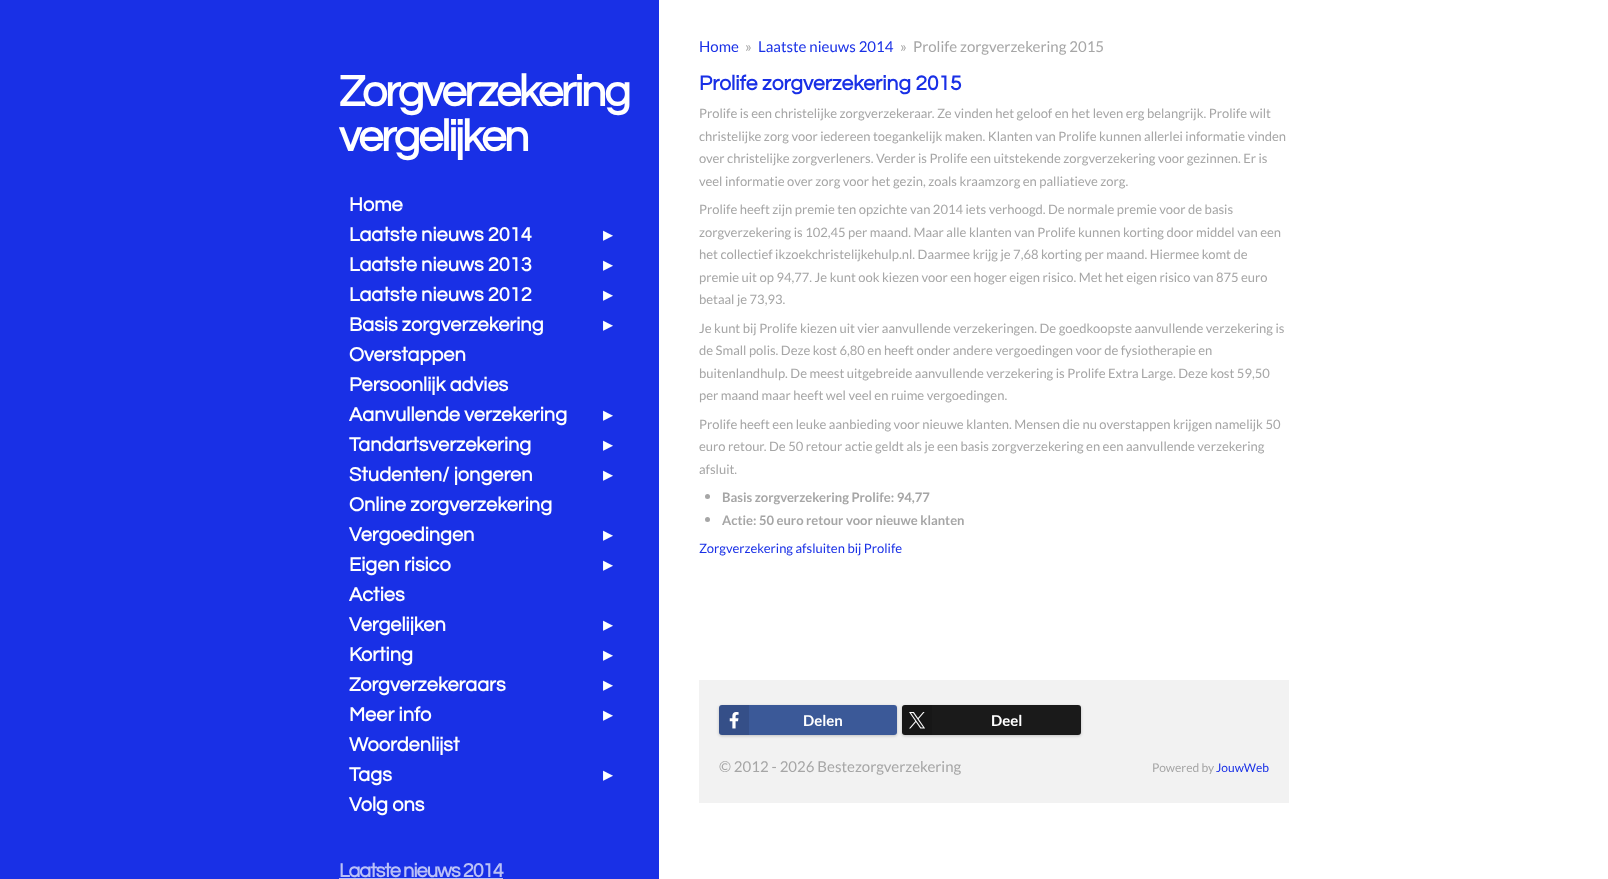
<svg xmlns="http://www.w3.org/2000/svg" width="1608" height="879">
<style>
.a{font:bold 45px Questrial;letter-spacing:-2.25px;fill:#fff}
.b{font:bold 20px Questrial;fill:#fff}
.c{font:20px DejaVu Sans;fill:#fff}
.d{font:bold 20px Questrial;letter-spacing:-1px;fill:#bac1f7}
.e{font:15px Lato;fill:#1930e6}
.f{font:15px Lato;fill:#a6a6a6}
.g{font:bold 21px Questrial;fill:#1930e6}
.h{font:13px Lato;fill:#a6a6a6}
.i{font:bold 13px Lato;fill:#a6a6a6}
.j{font:13px Lato;fill:#1930e6}
.k{font:bold 15px Lato;fill:#fff}
.l{font:12px Lato;fill:#a6a6a6}
.m{font:12px Lato;fill:#1930e6}
</style>
<rect width="100%" height="100%" fill="#fff"/>
<path fill="#1930e6" d="M0 0h659v879H0z"/>
<path fill="#bac1f7" d="M339 878h164v1H339z"/>
<circle fill="#a6a6a6" cx="707.5" cy="496.5" r="2.5"/>
<circle fill="#a6a6a6" cx="707.5" cy="519.5" r="2.5"/>
<path fill="#f2f2f2" d="M699 680h590v123H699z"/>
<rect fill="#00000033" filter="blur(1.5px)" x="719" y="706" width="178" height="30" rx="3"/>
<rect fill="#3b5998" x="719" y="705" width="178" height="30" rx="3"/>
<path fill="#0000001a" d="M722 705h27v30h-27c-1.5 0-3-1.5-3-3v-24c0-1.5 1.5-3 3-3z"/>
<image href="1.png" x="729" y="712" width="10" height="17"/>
<rect fill="#00000033" filter="blur(1.5px)" x="902" y="706" width="179" height="30" rx="3"/>
<rect fill="#1a1a1a" x="902" y="705" width="179" height="30" rx="3"/>
<path fill="#0000001a" d="M905 705h27v30h-27c-1.5 0-3-1.5-3-3v-24c0-1.5 1.5-3 3-3z"/>
<image href="2.png" x="909" y="712" width="16" height="17"/>
<text class="a" x="339" y="106">Zorgverzekering</text>
<text class="a" x="339" y="151">vergelijken</text>
<text class="b" x="349" y="211">Home</text>
<text class="b" x="349" y="241">Laatste nieuws 2014</text>
<text class="c" x="603" y="241">▸</text>
<text class="b" x="349" y="271">Laatste nieuws 2013</text>
<text class="c" x="603" y="271">▸</text>
<text class="b" x="349" y="301">Laatste nieuws 2012</text>
<text class="c" x="603" y="301">▸</text>
<text class="b" x="349" y="331">Basis zorgverzekering</text>
<text class="c" x="603" y="331">▸</text>
<text class="b" x="349" y="361">Overstappen</text>
<text class="b" x="349" y="391">Persoonlijk advies</text>
<text class="b" x="349" y="421">Aanvullende verzekering</text>
<text class="c" x="603" y="421">▸</text>
<text class="b" x="349" y="451">Tandartsverzekering</text>
<text class="c" x="603" y="451">▸</text>
<text class="b" x="349" y="481">Studenten/ jongeren</text>
<text class="c" x="603" y="481">▸</text>
<text class="b" x="349" y="511">Online zorgverzekering</text>
<text class="b" x="349" y="541">Vergoedingen</text>
<text class="c" x="603" y="541">▸</text>
<text class="b" x="349" y="571">Eigen risico</text>
<text class="c" x="603" y="571">▸</text>
<text class="b" x="349" y="601">Acties</text>
<text class="b" x="349" y="631">Vergelijken</text>
<text class="c" x="603" y="631">▸</text>
<text class="b" x="349" y="661">Korting</text>
<text class="c" x="603" y="661">▸</text>
<text class="b" x="349" y="691">Zorgverzekeraars</text>
<text class="c" x="603" y="691">▸</text>
<text class="b" x="349" y="721">Meer info</text>
<text class="c" x="603" y="721">▸</text>
<text class="b" x="349" y="751">Woordenlijst</text>
<text class="b" x="349" y="781">Tags</text>
<text class="c" x="603" y="781">▸</text>
<text class="b" x="349" y="811">Volg ons</text>
<text class="d" x="339" y="877">Laatste nieuws 2014</text>
<text class="e" x="699" y="52">Home</text>
<text class="f" x="745" y="52">»</text>
<text class="e" x="758" y="52">Laatste nieuws 2014</text>
<text class="f" x="900" y="52">»</text>
<text class="f" x="913" y="52">Prolife zorgverzekering 2015</text>
<text class="g" x="699" y="90">Prolife zorgverzekering 2015</text>
<text class="h" x="699" y="118">Prolife is een christelijke zorgverzekeraar. Ze vinden het geloof en het leven erg belangrijk. Prolife wilt</text>
<text class="h" x="699" y="141">christelijke zorg voor iedereen toegankelijk maken. Klanten van Prolife kunnen allerlei informatie vinden</text>
<text class="h" x="699" y="163">over christelijke zorgverleners. Verder is Prolife een uitstekende zorgverzekering voor gezinnen. Er is</text>
<text class="h" x="699" y="186">veel informatie over zorg voor het gezin, zoals kraamzorg en palliatieve zorg.</text>
<text class="h" x="699" y="214">Prolife heeft zijn premie ten opzichte van 2014 iets verhoogd. De normale premie voor de basis</text>
<text class="h" x="699" y="237">zorgverzekering is 102,45 per maand. Maar alle klanten van Prolife kunnen korting door middel van een</text>
<text class="h" x="699" y="259">het collectief ikzoekchristelijkehulp.nl. Daarmee krijg je 7,68 korting per maand. Hiermee komt de</text>
<text class="h" x="699" y="282">premie uit op 94,77. Je kunt ook kiezen voor een hoger eigen risico. Met het eigen risico van 875 euro</text>
<text class="h" x="699" y="304">betaal je 73,93.</text>
<text class="h" x="699" y="333">Je kunt bij Prolife kiezen uit vier aanvullende verzekeringen. De goedkoopste aanvullende verzekering is</text>
<text class="h" x="699" y="355">de Small polis. Deze kost 6,80 en heeft onder andere vergoedingen voor de fysiotherapie en</text>
<text class="h" x="699" y="378">buitenlandhulp. De meest uitgebreide aanvullende verzekering is Prolife Extra Large. Deze kost 59,50</text>
<text class="h" x="699" y="400">per maand maar heeft wel veel en ruime vergoedingen.</text>
<text class="h" x="699" y="429">Prolife heeft een leuke aanbieding voor nieuwe klanten. Mensen die nu overstappen krijgen namelijk 50</text>
<text class="h" x="699" y="451">euro retour. De 50 retour actie geldt als je een basis zorgverzekering en een aanvullende verzekering</text>
<text class="h" x="699" y="474">afsluit.</text>
<text class="i" x="722" y="502">Basis zorgverzekering Prolife: 94,77</text>
<text class="i" x="722" y="525">Actie: 50 euro retour voor nieuwe klanten</text>
<text class="j" x="699" y="553">Zorgverzekering afsluiten bij Prolife</text>
<text class="k" x="803" y="726">Delen</text>
<text class="k" x="991" y="726">Deel</text>
<text class="f" x="719" y="772">© 2012 - 2026 Bestezorgverzekering</text>
<text class="l" x="1152" y="772">Powered by</text>
<text class="m" x="1216" y="772">JouwWeb</text>
</svg>
